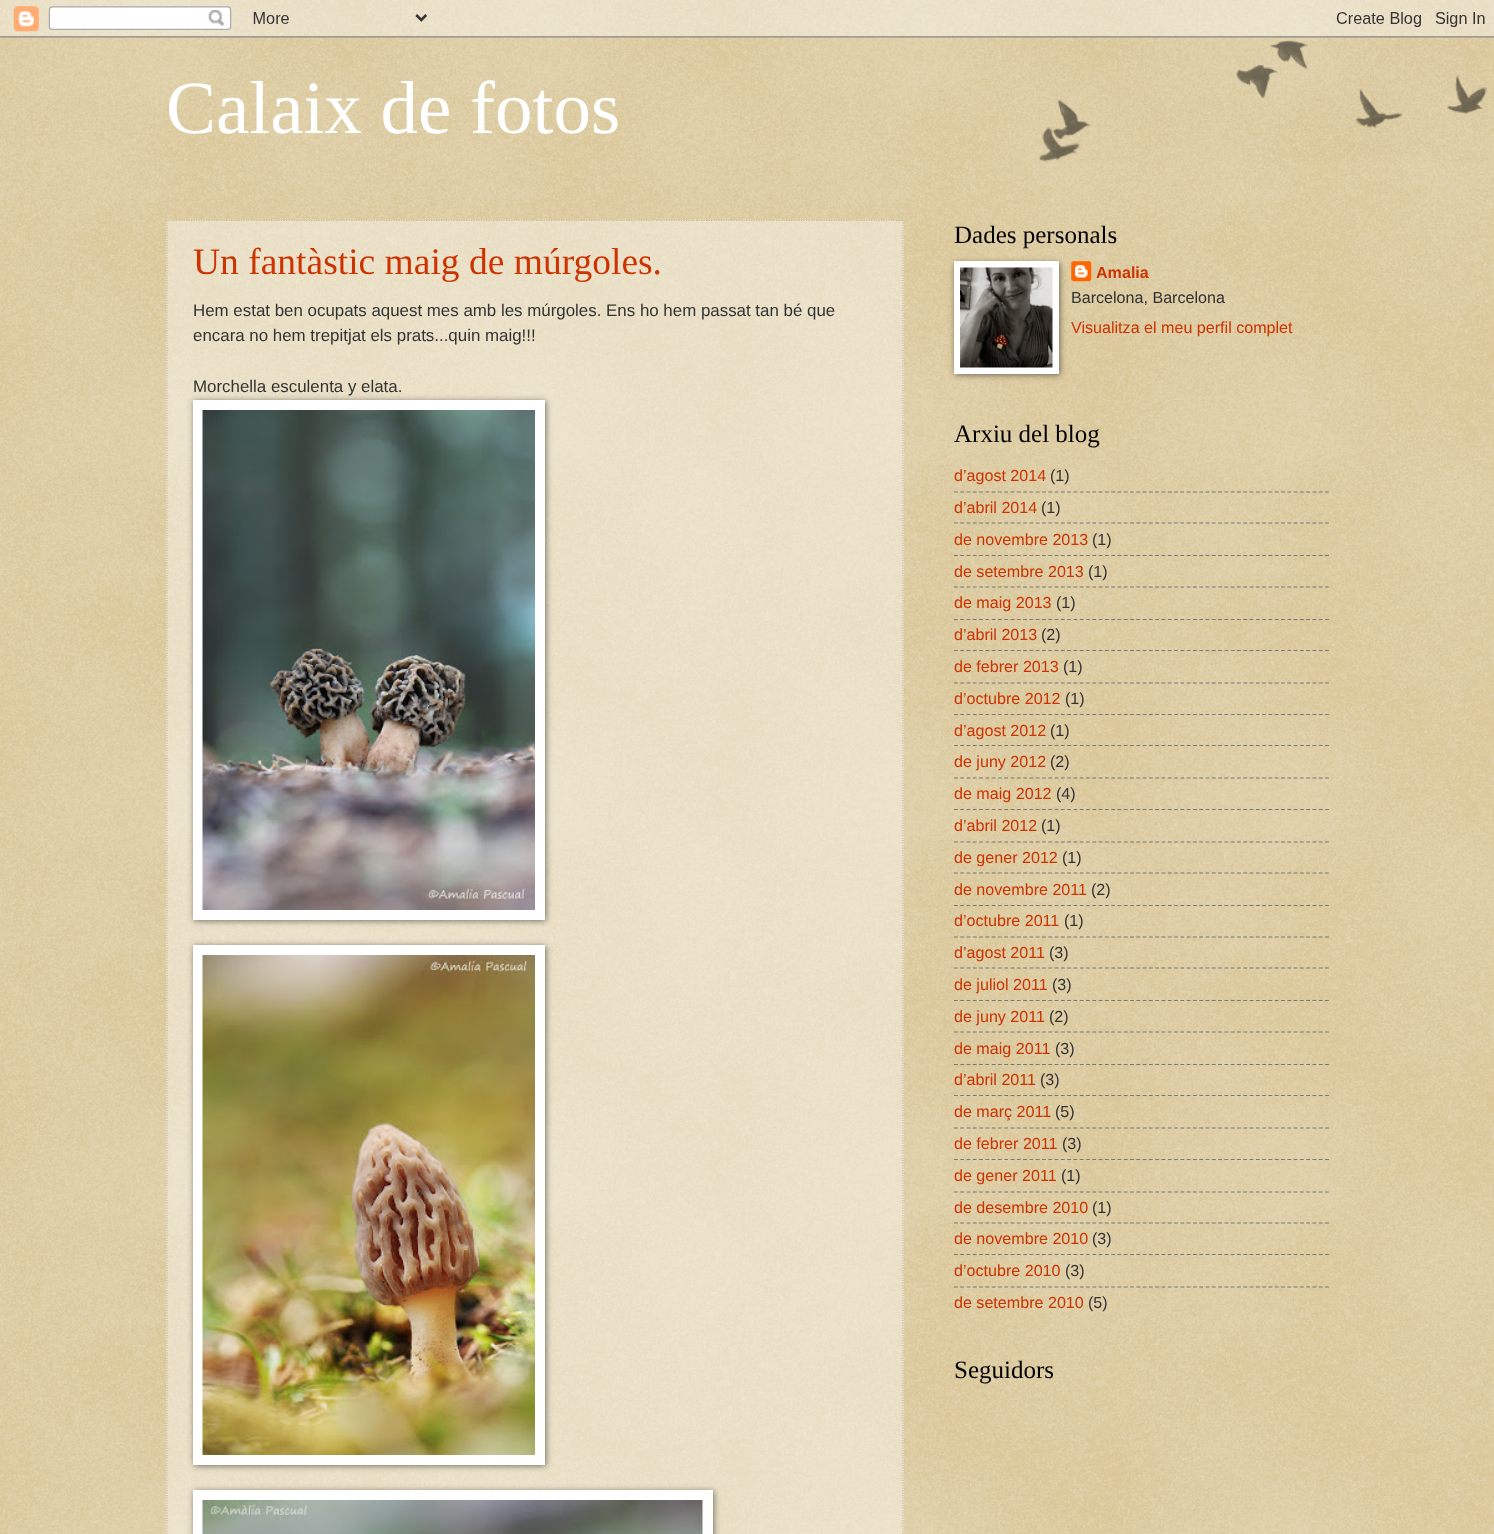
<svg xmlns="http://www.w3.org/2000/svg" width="1494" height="1534">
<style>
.a{font:75px Liberation Serif;fill:#fff}
.b{font:37.5px Liberation Serif;fill:#c30}
.c{font:16.9px Liberation Sans;fill:#333}
.d{font:25px Liberation Serif;fill:#000}
.e{font:bold 16.1px Liberation Sans;fill:#c30}
.f{font:16.1px Liberation Sans;fill:#333}
.g{font:16.1px Liberation Sans;fill:#c30}
</style>
<rect width="100%" height="100%" fill="#c0a154"/>
<image href="1.png" x="0" y="0" width="1494" height="1534"/>
<image href="2.png" x="0" y="0" width="1494" height="38"/>
<image href="3.png" x="1039" y="40" width="449" height="122"/>
<path fill="#ffffff66" d="M166 220h738v1314H166z"/>
<path fill="none" stroke="#cb9" stroke-width="1.2" stroke-dasharray="1.25 1.25" d="M166 220.5h738"/>
<path fill="none" stroke="#cb9" stroke-width="1.2" stroke-dasharray="1.25 1.25" d="M903 220v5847.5"/>
<path fill="none" stroke="#cb9" stroke-width="1.2" stroke-dasharray="1.25 1.25" d="M167 220v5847.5"/>
<path fill="#00000080" filter="blur(3px)" d="M194 401h352v520H194z"/>
<path fill="#fff" d="M193 400h352v520H193z"/>
<image href="4.png" x="202" y="410" width="333" height="500"/>
<path fill="#00000080" filter="blur(3px)" d="M194 946h352v520H194z"/>
<path fill="#fff" d="M193 945h352v520H193z"/>
<image href="5.png" x="202" y="955" width="333" height="500"/>
<path fill="#00000080" filter="blur(3px)" d="M194 1491h520v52H194z"/>
<path fill="#fff" d="M193 1490h520v44H193z"/>
<image href="6.png" x="202" y="1500" width="501" height="34"/>
<path fill="#00000080" filter="blur(3px)" d="M955 263h105v112H955z"/>
<path fill="#fff" d="M954 261h105v113H954z"/>
<image href="7.png" x="960" y="267" width="93" height="101"/>
<image href="8.png" x="1071" y="261" width="21" height="21"/>
<path fill="none" stroke="#777" stroke-width="1.2" stroke-dasharray="3.75 2.54" d="M954 492h375"/>
<path fill="none" stroke="#777" stroke-width="1.2" stroke-dasharray="3.75 2.54" d="M954 523h375"/>
<path fill="none" stroke="#777" stroke-width="1.2" stroke-dasharray="3.75 2.54" d="M954 555.5h375"/>
<path fill="none" stroke="#777" stroke-width="1.2" stroke-dasharray="3.75 2.54" d="M954 587h375"/>
<path fill="none" stroke="#777" stroke-width="1.2" stroke-dasharray="3.75 2.54" d="M954 619.5h375"/>
<path fill="none" stroke="#777" stroke-width="1.2" stroke-dasharray="3.75 2.54" d="M954 650.5h375"/>
<path fill="none" stroke="#777" stroke-width="1.2" stroke-dasharray="3.75 2.54" d="M954 683h375"/>
<path fill="none" stroke="#777" stroke-width="1.2" stroke-dasharray="3.75 2.54" d="M954 714.5h375"/>
<path fill="none" stroke="#777" stroke-width="1.2" stroke-dasharray="3.75 2.54" d="M954 745.5h375"/>
<path fill="none" stroke="#777" stroke-width="1.2" stroke-dasharray="3.75 2.54" d="M954 778h375"/>
<path fill="none" stroke="#777" stroke-width="1.2" stroke-dasharray="3.75 2.54" d="M954 809.5h375"/>
<path fill="none" stroke="#777" stroke-width="1.2" stroke-dasharray="3.75 2.54" d="M954 842h375"/>
<path fill="none" stroke="#777" stroke-width="1.2" stroke-dasharray="3.75 2.54" d="M954 873h375"/>
<path fill="none" stroke="#777" stroke-width="1.2" stroke-dasharray="3.75 2.54" d="M954 905.5h375"/>
<path fill="none" stroke="#777" stroke-width="1.2" stroke-dasharray="3.75 2.54" d="M954 937h375"/>
<path fill="none" stroke="#777" stroke-width="1.2" stroke-dasharray="3.75 2.54" d="M954 968h375"/>
<path fill="none" stroke="#777" stroke-width="1.2" stroke-dasharray="3.75 2.54" d="M954 1000.5h375"/>
<path fill="none" stroke="#777" stroke-width="1.2" stroke-dasharray="3.75 2.54" d="M954 1032h375"/>
<path fill="none" stroke="#777" stroke-width="1.2" stroke-dasharray="3.75 2.54" d="M954 1064.5h375"/>
<path fill="none" stroke="#777" stroke-width="1.2" stroke-dasharray="3.75 2.54" d="M954 1095.5h375"/>
<path fill="none" stroke="#777" stroke-width="1.2" stroke-dasharray="3.75 2.54" d="M954 1128h375"/>
<path fill="none" stroke="#777" stroke-width="1.2" stroke-dasharray="3.75 2.54" d="M954 1159.5h375"/>
<path fill="none" stroke="#777" stroke-width="1.2" stroke-dasharray="3.75 2.54" d="M954 1192h375"/>
<path fill="none" stroke="#777" stroke-width="1.2" stroke-dasharray="3.75 2.54" d="M954 1223h375"/>
<path fill="none" stroke="#777" stroke-width="1.2" stroke-dasharray="3.75 2.54" d="M954 1254.5h375"/>
<path fill="none" stroke="#777" stroke-width="1.2" stroke-dasharray="3.75 2.54" d="M954 1287h375"/>
<text class="a" x="166" y="133">Calaix de fotos</text>
<text class="b" x="193" y="274">Un fantàstic maig de múrgoles.</text>
<text class="c" x="193" y="316">Hem estat ben ocupats aquest mes amb les múrgoles. Ens ho hem passat tan bé que</text>
<text class="c" x="193" y="341">encara no hem trepitjat els prats...quin maig!!!</text>
<text class="c" x="193" y="392">Morchella esculenta y elata.</text>
<text class="d" x="954" y="243">Dades personals</text>
<text class="e" x="1096" y="278">Amalia</text>
<text class="f" x="1071" y="303">Barcelona, Barcelona</text>
<text class="g" x="1071" y="333">Visualitza el meu perfil complet</text>
<text class="d" x="954" y="442">Arxiu del blog</text>
<text class="g" x="954" y="481">d’agost 2014</text>
<text class="f" x="1050" y="481">(1)</text>
<text class="g" x="954" y="513">d’abril 2014</text>
<text class="f" x="1041" y="513">(1)</text>
<text class="g" x="954" y="545">de novembre 2013</text>
<text class="f" x="1092" y="545">(1)</text>
<text class="g" x="954" y="577">de setembre 2013</text>
<text class="f" x="1088" y="577">(1)</text>
<text class="g" x="954" y="608">de maig 2013</text>
<text class="f" x="1056" y="608">(1)</text>
<text class="g" x="954" y="640">d’abril 2013</text>
<text class="f" x="1041" y="640">(2)</text>
<text class="g" x="954" y="672">de febrer 2013</text>
<text class="f" x="1063" y="672">(1)</text>
<text class="g" x="954" y="704">d’octubre 2012</text>
<text class="f" x="1065" y="704">(1)</text>
<text class="g" x="954" y="736">d’agost 2012</text>
<text class="f" x="1050" y="736">(1)</text>
<text class="g" x="954" y="767">de juny 2012</text>
<text class="f" x="1050" y="767">(2)</text>
<text class="g" x="954" y="799">de maig 2012</text>
<text class="f" x="1056" y="799">(4)</text>
<text class="g" x="954" y="831">d’abril 2012</text>
<text class="f" x="1041" y="831">(1)</text>
<text class="g" x="954" y="863">de gener 2012</text>
<text class="f" x="1062" y="863">(1)</text>
<text class="g" x="954" y="895">de novembre 2011</text>
<text class="f" x="1091" y="895">(2)</text>
<text class="g" x="954" y="926">d’octubre 2011</text>
<text class="f" x="1064" y="926">(1)</text>
<text class="g" x="954" y="958">d’agost 2011</text>
<text class="f" x="1049" y="958">(3)</text>
<text class="g" x="954" y="990">de juliol 2011</text>
<text class="f" x="1052" y="990">(3)</text>
<text class="g" x="954" y="1022">de juny 2011</text>
<text class="f" x="1049" y="1022">(2)</text>
<text class="g" x="954" y="1054">de maig 2011</text>
<text class="f" x="1055" y="1054">(3)</text>
<text class="g" x="954" y="1085">d’abril 2011</text>
<text class="f" x="1040" y="1085">(3)</text>
<text class="g" x="954" y="1117">de març 2011</text>
<text class="f" x="1055" y="1117">(5)</text>
<text class="g" x="954" y="1149">de febrer 2011</text>
<text class="f" x="1062" y="1149">(3)</text>
<text class="g" x="954" y="1181">de gener 2011</text>
<text class="f" x="1061" y="1181">(1)</text>
<text class="g" x="954" y="1213">de desembre 2010</text>
<text class="f" x="1092" y="1213">(1)</text>
<text class="g" x="954" y="1244">de novembre 2010</text>
<text class="f" x="1092" y="1244">(3)</text>
<text class="g" x="954" y="1276">d’octubre 2010</text>
<text class="f" x="1065" y="1276">(3)</text>
<text class="g" x="954" y="1308">de setembre 2010</text>
<text class="f" x="1088" y="1308">(5)</text>
<text class="d" x="954" y="1378">Seguidors</text>
</svg>
